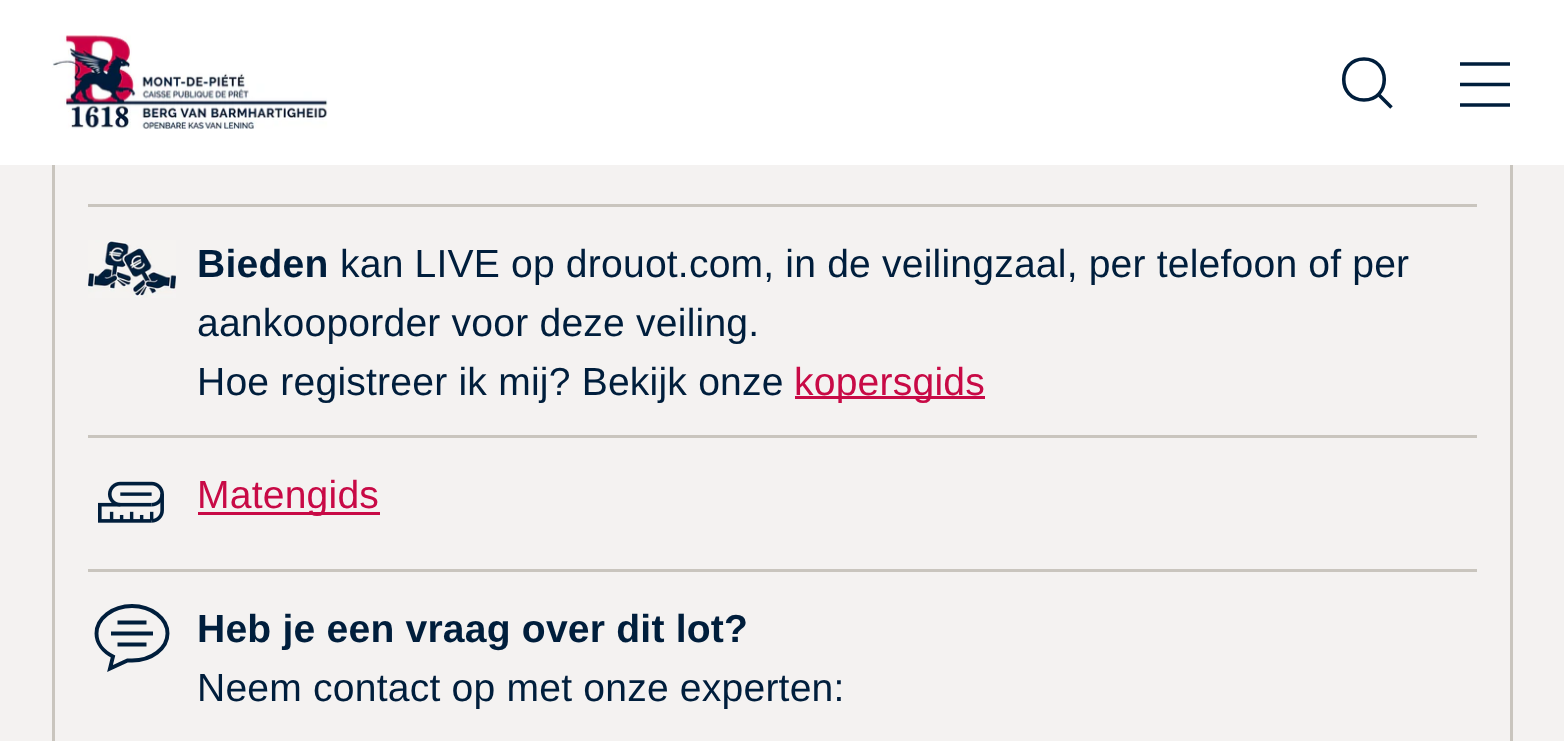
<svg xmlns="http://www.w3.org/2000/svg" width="1564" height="741">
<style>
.a{font:bold 39.1px Arimo;letter-spacing:0.2px;fill:#001e3c}
.b{font:39.1px Arimo;letter-spacing:0.2px;fill:#001e3c}
.c{font:39.1px Arimo;letter-spacing:0.2px;fill:#c80a46}
</style>
<rect width="100%" height="100%" fill="#f4f2f1"/>
<path fill="none" stroke="#c9c5be" stroke-width="3" d="M53.5 -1.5h1458v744H53.5z"/>
<path fill="#fff" d="M0 0h1564v165H0z"/>
<image href="1.png" x="52" y="35" width="276" height="94"/>
<path fill="none" stroke="#001e3c" stroke-width="3.6" stroke-linecap="round" d="M1364 100c27 0 27-41 0-41c-27 0-27 41 0 41z"/>
<path fill="none" stroke="#001e3c" stroke-width="3.6" d="M1378.5 94.5l13 13"/>
<path fill="none" stroke="#001e3c" stroke-width="3.6" d="M1460 84.5h50m-50-20.5h50m-50 41h50"/>
<path fill="#c9c5be" d="M88 204h1389v3H88z"/>
<image href="2.png" x="88" y="240" width="88" height="58"/>
<path fill="#c80a46" d="M795 396h190v3H795z"/>
<path fill="#c9c5be" d="M88 435h1389v3H88z"/>
<image href="3.png" x="98" y="481" width="66" height="42"/>
<path fill="#c80a46" d="M198 512h182v3H198z"/>
<path fill="#c9c5be" d="M88 569h1389v3H88z"/>
<path fill="none" stroke="#001e3c" stroke-width="3.9" d="M111 633.5h42m-35.5-11h29m-29 22h29"/>
<path fill="none" stroke="#001e3c" stroke-width="3.9" stroke-linecap="round" d="M132 606c-19.5 0-35.5 12.5-35.5 27.5c0 9.5 6.5 18 16.5 23l-3 12l17.5-8h4.5c19.5 0 35.5-12 35.5-27c0-15-16-27.5-35.5-27.5z"/>
<text class="a" x="197" y="277">Bieden</text>
<text class="b" x="340" y="277" word-spacing="-0.1">kan LIVE op drouot.com, in de veilingzaal, per telefoon of per</text>
<text class="b" x="197" y="336">aankooporder voor deze veiling.</text>
<text class="b" x="197" y="395">Hoe registreer ik mij? Bekijk onze</text>
<text class="c" x="794" y="395">kopersgids</text>
<text class="c" x="197" y="508">Matengids</text>
<text class="a" x="197" y="642">Heb je een vraag over dit lot?</text>
<text class="b" x="197" y="701">Neem contact op met onze experten:</text>
</svg>
